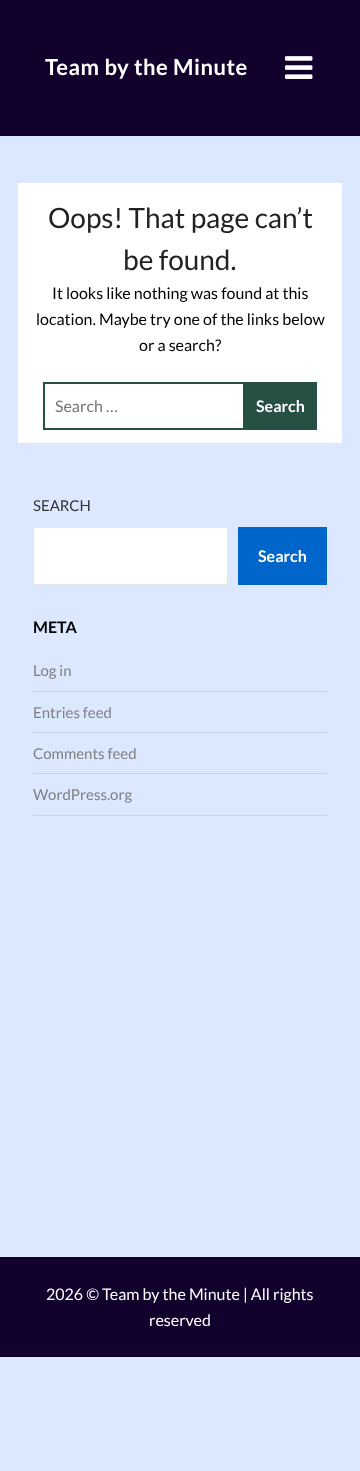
<svg xmlns="http://www.w3.org/2000/svg" width="360" height="1471">
<style>
.a{font:bold 22px Lato;letter-spacing:0.5px;fill:#fff}
.b{font:28px Lato;fill:#222}
.c{font:16px Lato;fill:#000}
.d{font:16px Lato;fill:#757575}
.e{font:bold 16px Lato;fill:#fff}
.f{font:15px Lato;fill:#333}
.g{font:bold 16px Lato;fill:#000}
.h{font:15px Lato;fill:#808080}
.i{font:16px Lato;fill:#fff}
</style>
<rect width="100%" height="100%" fill="#dbe8ff"/>
<path fill="#13012d" d="M0 0h360v136H0z"/>
<image href="1.png" x="285" y="56" width="28" height="23"/>
<path fill="#fff" d="M18 183h324v260H18z"/>
<path fill="none" stroke="#275044" stroke-width="2" d="M44 383h200v46H44z"/>
<path fill="#275044" d="M245 382h72v48H245z"/>
<path fill="#fff" stroke="#e5e6e9" d="M33.5 527.5h194v57H33.5z"/>
<path fill="#06c" d="M238 527h89v58H238z"/>
<path fill="#c9d5eb" d="M33 691h294v1H33z"/>
<path fill="#c9d5eb" d="M33 732h294v1H33z"/>
<path fill="#c9d5eb" d="M33 773h294v1H33z"/>
<path fill="#c9d5eb" d="M33 815h294v1H33z"/>
<path fill="#13012d" d="M0 1257h360v100H0z"/>
<text class="a" x="45" y="75">Team by the Minute</text>
<text class="b" x="48" y="228">Oops! That page can’t</text>
<text class="b" x="123" y="270">be found.</text>
<text class="c" x="52" y="299">It looks like nothing was found at this</text>
<text class="c" x="36" y="325">location. Maybe try one of the links below</text>
<text class="c" x="139" y="351">or a search?</text>
<text class="d" x="55" y="412">Search …</text>
<text class="e" x="256" y="412">Search</text>
<text class="f" x="33" y="511">SEARCH</text>
<text class="e" x="258" y="562">Search</text>
<text class="g" x="33" y="633">META</text>
<text class="h" x="33" y="676">Log in</text>
<text class="h" x="33" y="718">Entries feed</text>
<text class="h" x="33" y="759">Comments feed</text>
<text class="h" x="33" y="800">WordPress.org</text>
<text class="i" x="46" y="1300">2026 © Team by the Minute | All rights</text>
<text class="i" x="149" y="1326">reserved</text>
</svg>
